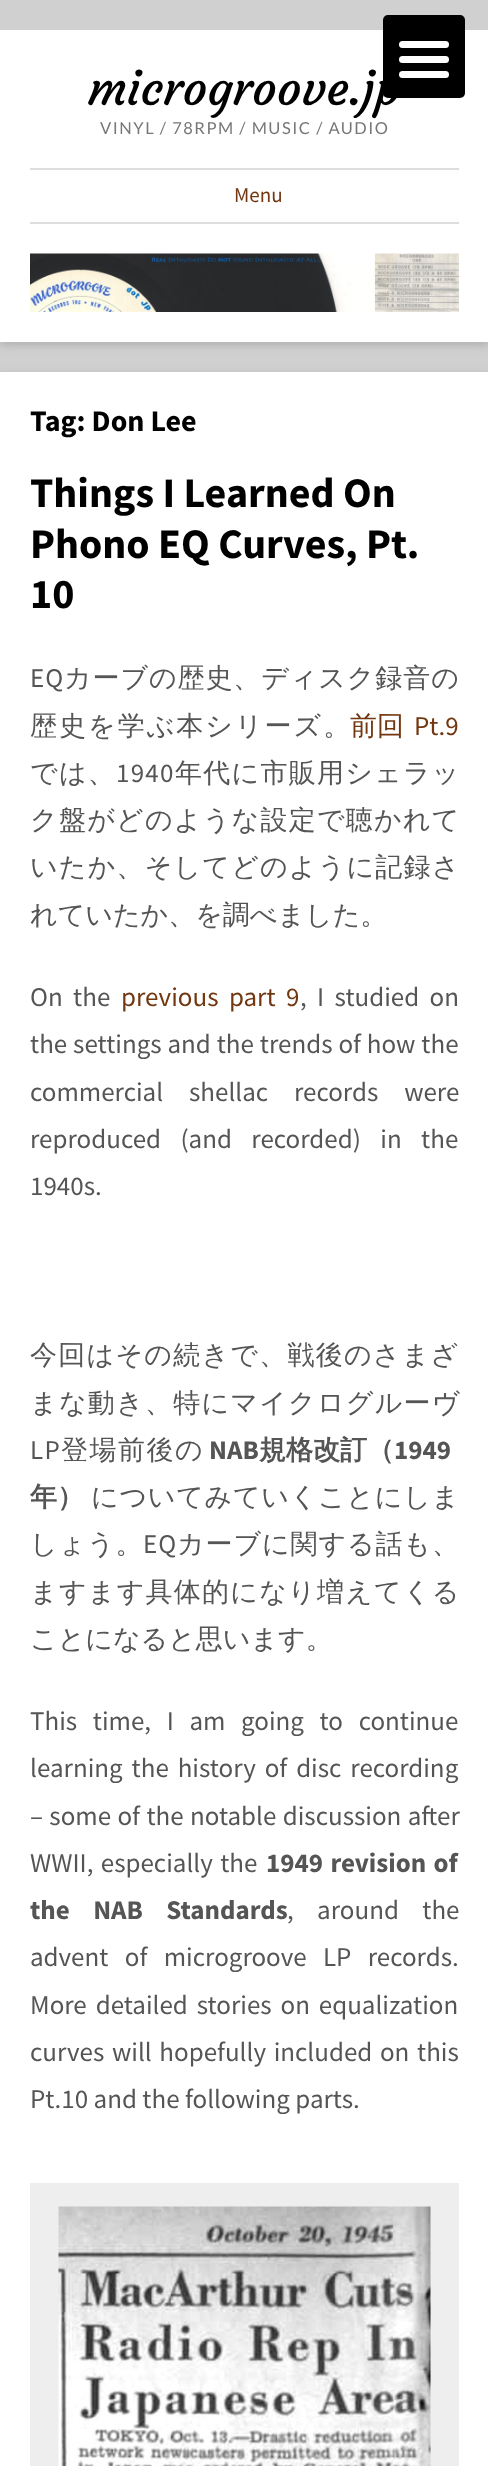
<svg xmlns="http://www.w3.org/2000/svg" width="488" height="2466">
<style>
.a{font:48px Courgette;fill:#000}
.b{font:16.5px Lato;letter-spacing:1.5px;fill:#777}
.c{font:21px Source Sans Pro;fill:#723710}
.d{font:bold 30px Source Sans Pro;fill:#000}
.e{font:bold 42px Source Sans Pro;fill:#000}
.f{font:27px Source Sans Pro;letter-spacing:0.9px;fill:#555}
.g{font:500 27px WenQuanYi Zen Hei;letter-spacing:0.9px;fill:#555}
.h{font:500 27px WenQuanYi Zen Hei;letter-spacing:2px;fill:#555}
.i{font:500 27px WenQuanYi Zen Hei;fill:#723710}
.j{font:27px Source Sans Pro;fill:#723710}
.k{font:500 27px WenQuanYi Zen Hei;letter-spacing:1.25px;fill:#555}
.l{font:27px Source Sans Pro;letter-spacing:1.25px;fill:#555}
.m{font:500 27px WenQuanYi Zen Hei;letter-spacing:1.2px;fill:#555}
.n{font:500 27px WenQuanYi Zen Hei;fill:#555}
.o{font:27px Source Sans Pro;fill:#555}
.p{font:27px Source Sans Pro;letter-spacing:1.5px;fill:#555}
.q{font:500 27px WenQuanYi Zen Hei;letter-spacing:1.5px;fill:#555}
.r{font:bold 27px Source Sans Pro;fill:#555}
.s{font:bold 27px WenQuanYi Zen Hei;fill:#555}
.t{font:500 27px WenQuanYi Zen Hei;letter-spacing:0.75px;fill:#555}
</style>
<defs>
<clipPath id="clip1"><path d="M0 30h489v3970H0z"/></clipPath>
<clipPath id="clip2"><path d="M30 468h429v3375H30z"/></clipPath>
</defs>
<rect width="100%" height="100%" fill="#d0d0d0"/>
<g clip-path="url(#clip1)">
<path fill="#6464644d" filter="blur(4.5px)" d="M0 33h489v312H0z"/>
</g>
<path fill="#fff" d="M0 30h488v312H0z"/>
<rect fill="#000" x="383" y="15" width="82" height="83" rx="5"/>
<rect fill="#fff" x="399" y="56" width="50" height="7" rx="3.5"/>
<rect fill="#fff" x="399" y="41" width="50" height="7" rx="3.5"/>
<path fill="#ddd" d="M30 168h429v2H30z"/>
<path fill="#ddd" d="M30 222h429v2H30z"/>
<image href="1.png" x="30" y="253" width="429" height="59"/>
<path fill="#6464644d" filter="blur(4.5px)" d="M0 375h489v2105H0z"/>
<path fill="#fff" d="M0 372h488v2094H0z"/>
<path fill="#eee" d="M30 2183h429v283H30z"/>
<image href="2.png" x="58" y="2206" width="373" height="260"/>
<text class="a" x="88" y="105">microgroove.jp</text>
<rect fill="#fff" x="399" y="71" width="50" height="7" rx="3.5"/>
<text class="b" x="100" y="134">VINYL / 78RPM / MUSIC / AUDIO</text>
<text class="c" x="234" y="202">Menu</text>
<text class="d" x="30" y="431">Tag: Don Lee</text>
<text class="e" x="30" y="507">Things I Learned On</text>
<text class="e" x="30" y="558">Phono EQ Curves, Pt.</text>
<text class="e" x="30" y="608">10</text>
<text class="f" x="30" y="687">EQ</text>
<text class="g" x="64" y="687">カーブの歴史、ディスク録音の</text>
<text class="h" x="30" y="735">歴史を学ぶ本シリーズ。</text>
<text class="i" x="350" y="735">前回</text>
<text class="j" x="414" y="735">Pt.9</text>
<text class="k" x="30" y="782">では、</text>
<text class="l" x="116" y="782">1940</text>
<text class="k" x="175" y="782">年代に市販用シェラッ</text>
<text class="k" x="30" y="829">ク盤がどのような設定で聴かれて</text>
<text class="m" x="30" y="876">いたか、そしてどのように記録さ</text>
<text class="n" x="30" y="924">れていたか、を調べました。</text>
<text class="o" x="30" y="1006" word-spacing="5">On the</text>
<text class="j" x="121" y="1006" word-spacing="5">previous part 9</text>
<text class="o" x="300" y="1006" word-spacing="5">, I studied on</text>
<text class="o" x="30" y="1053" word-spacing="0.5">the settings and the trends of how the</text>
<text class="o" x="30" y="1101" word-spacing="20.5">commercial shellac records were</text>
<text class="o" x="30" y="1148" word-spacing="14">reproduced (and recorded) in the</text>
<text class="o" x="30" y="1195">1940s.</text>
<text class="k" x="30" y="1364">今回はその続きで、戦後のさまざ</text>
<text class="k" x="30" y="1412">まな動き、特にマイクログルーヴ</text>
<text class="p" x="30" y="1459">LP</text>
<text class="q" x="61" y="1459">登場前後の</text>
<text class="r" x="209" y="1459">NAB</text>
<text class="s" x="259" y="1459">規格改訂（</text>
<text class="r" x="394" y="1459">1949</text>
<text class="s" x="30" y="1506">年）</text>
<text class="t" x="91" y="1506">についてみていくことにしま</text>
<text class="g" x="30" y="1553">しょう。</text>
<text class="f" x="143" y="1553">EQ</text>
<text class="g" x="177" y="1553">カーブに関する話も、</text>
<text class="k" x="30" y="1601">ますます具体的になり増えてくる</text>
<text class="n" x="30" y="1648">ことになると思います。</text>
<text class="o" x="30" y="1730" word-spacing="10.25">This time, I am going to continue</text>
<text class="o" x="30" y="1777" word-spacing="3.5">learning the history of disc recording</text>
<text class="o" x="30" y="1825" word-spacing="1">– some of the notable discussion after</text>
<text class="o" x="30" y="1872" word-spacing="2">WWII, especially the</text>
<g clip-path="url(#clip2)">
<text class="r" x="266" y="1872" word-spacing="2">1949 revision of</text>
</g>
<text class="r" x="30" y="1919" word-spacing="18">the NAB Standards</text>
<text class="o" x="287" y="1919" word-spacing="18">, around the</text>
<text class="o" x="30" y="1966" word-spacing="11">advent of microgroove LP records.</text>
<text class="o" x="30" y="2014" word-spacing="3.5">More detailed stories on equalization</text>
<text class="o" x="30" y="2061" word-spacing="2.25">curves will hopefully included on this</text>
<text class="o" x="30" y="2108">Pt.10 and the following parts.</text>
</svg>
